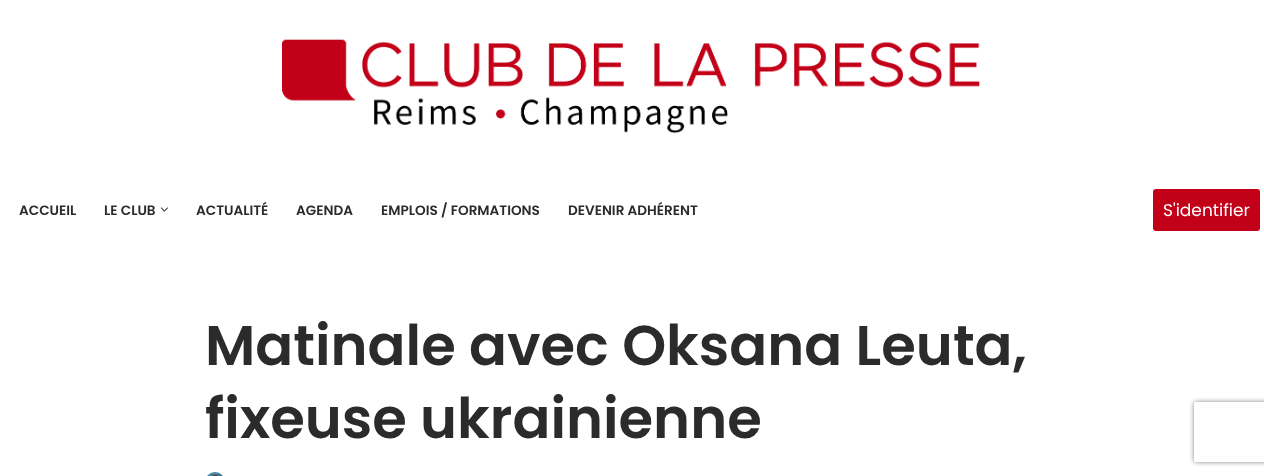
<svg xmlns="http://www.w3.org/2000/svg" width="1264" height="476">
<style>
.a{font:600 13.6px Poppins;fill:#2b2b2b}
.b{font:17px Poppins;fill:#fff}
.c{font:600 56px Poppins;fill:#2b2b2b}
</style>
<defs>
<clipPath id="clip1"><path d="M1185 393h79v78h-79zm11 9h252c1 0 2 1 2 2v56c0 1-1 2-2 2h-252c-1 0-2-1-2-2v-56c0-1 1-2 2-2z" clip-rule="evenodd"/></clipPath>
</defs>
<rect width="100%" height="100%" fill="#fff"/>
<image href="1.png" x="282" y="39" width="698" height="95"/>
<image href="2.png" x="161" y="207" width="7" height="5"/>
<rect fill="#c20017" x="1153" y="189" width="107" height="42" rx="3"/>
<image href="3.png" x="207" y="472" width="16" height="4"/>
<g clip-path="url(#clip1)">
<rect fill="#808080" filter="blur(2.5px)" x="1194" y="402" width="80" height="60" rx="2"/>
</g>
<text class="a" x="19" y="215">ACCUEIL</text>
<text class="a" x="104" y="215">LE CLUB</text>
<text class="a" x="196" y="215">ACTUALITÉ</text>
<text class="a" x="296" y="215">AGENDA</text>
<text class="a" x="381" y="215">EMPLOIS / FORMATIONS</text>
<text class="a" x="568" y="215">DEVENIR ADHÉRENT</text>
<text class="b" x="1163" y="216">S'identifier</text>
<text class="c" x="205" y="365">Matinale avec Oksana Leuta,</text>
<text class="c" x="205" y="438">fixeuse ukrainienne</text>
</svg>
